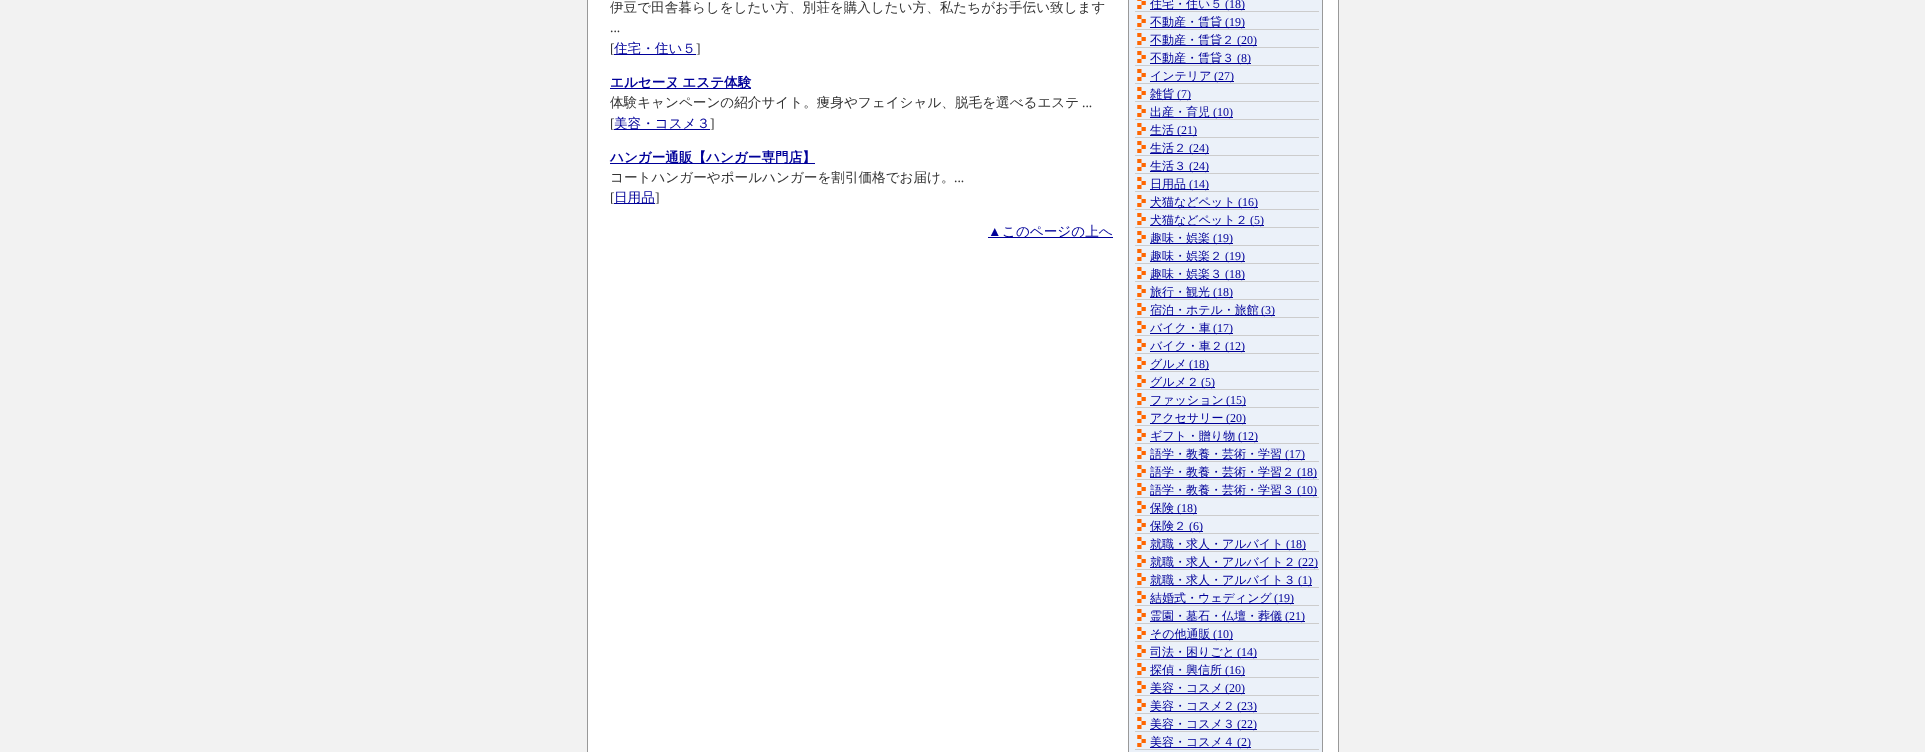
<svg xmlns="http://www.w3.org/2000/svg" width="1925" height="752">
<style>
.a{font:500 13.6px WenQuanYi Zen Hei;fill:#333}
.b{font:13.6px Liberation Serif;fill:#333}
.c{font:500 13.6px WenQuanYi Zen Hei;fill:#009}
.d{font:bold 13.6px WenQuanYi Zen Hei;fill:#009}
.e{font:13.6px Liberation Serif;fill:#009}
.f{font:500 12px WenQuanYi Zen Hei;fill:#009}
.g{font:12px Liberation Serif;fill:#009}
</style>
<rect width="100%" height="100%" fill="#f2f2f2"/>
<path fill="#fff" stroke="#999" d="M587.5 -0.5h751v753H587.5z"/>
<path fill="#009" d="M614 54h82v1H614z"/>
<path fill="#009" d="M610 88h141v1H610z"/>
<path fill="#009" d="M614 129h96v1H614z"/>
<path fill="#009" d="M610 163h205v1H610z"/>
<path fill="#009" d="M614 203h41v1H614z"/>
<path fill="#009" d="M988 237h125v1H988z"/>
<path fill="#ebf1f9" d="M1129 0h193v752H1129z"/>
<path fill="#999" d="M1322 0h1v752H1322z"/>
<path fill="#999" d="M1128 0h1v752H1128z"/>
<image href="1.png" x="1137" y="0" width="9" height="9"/>
<path fill="#ccc" d="M1135 11h184v1H1135z"/>
<path fill="#009" d="M1150 9h95v1H1150z"/>
<image href="2.png" x="1137" y="15" width="9" height="12"/>
<path fill="#ccc" d="M1135 29h184v1H1135z"/>
<path fill="#009" d="M1150 27h95v1H1150z"/>
<image href="2.png" x="1137" y="33" width="9" height="12"/>
<path fill="#ccc" d="M1135 47h184v1H1135z"/>
<path fill="#009" d="M1150 45h107v1H1150z"/>
<image href="2.png" x="1137" y="51" width="9" height="12"/>
<path fill="#ccc" d="M1135 65h184v1H1135z"/>
<path fill="#009" d="M1150 63h101v1H1150z"/>
<image href="2.png" x="1137" y="69" width="9" height="12"/>
<path fill="#ccc" d="M1135 83h184v1H1135z"/>
<path fill="#009" d="M1150 81h84v1H1150z"/>
<image href="2.png" x="1137" y="87" width="9" height="12"/>
<path fill="#ccc" d="M1135 101h184v1H1135z"/>
<path fill="#009" d="M1150 99h41v1H1150z"/>
<image href="2.png" x="1137" y="105" width="9" height="12"/>
<path fill="#ccc" d="M1135 119h184v1H1135z"/>
<path fill="#009" d="M1150 117h83v1H1150z"/>
<image href="2.png" x="1137" y="123" width="9" height="12"/>
<path fill="#ccc" d="M1135 137h184v1H1135z"/>
<path fill="#009" d="M1150 135h47v1H1150z"/>
<image href="2.png" x="1137" y="141" width="9" height="12"/>
<path fill="#ccc" d="M1135 155h184v1H1135z"/>
<path fill="#009" d="M1150 153h59v1H1150z"/>
<image href="2.png" x="1137" y="159" width="9" height="12"/>
<path fill="#ccc" d="M1135 173h184v1H1135z"/>
<path fill="#009" d="M1150 171h59v1H1150z"/>
<image href="2.png" x="1137" y="177" width="9" height="12"/>
<path fill="#ccc" d="M1135 191h184v1H1135z"/>
<path fill="#009" d="M1150 189h59v1H1150z"/>
<image href="2.png" x="1137" y="195" width="9" height="12"/>
<path fill="#ccc" d="M1135 209h184v1H1135z"/>
<path fill="#009" d="M1150 207h108v1H1150z"/>
<image href="2.png" x="1137" y="213" width="9" height="12"/>
<path fill="#ccc" d="M1135 227h184v1H1135z"/>
<path fill="#009" d="M1150 225h114v1H1150z"/>
<image href="2.png" x="1137" y="231" width="9" height="12"/>
<path fill="#ccc" d="M1135 245h184v1H1135z"/>
<path fill="#009" d="M1150 243h83v1H1150z"/>
<image href="2.png" x="1137" y="249" width="9" height="12"/>
<path fill="#ccc" d="M1135 263h184v1H1135z"/>
<path fill="#009" d="M1150 261h95v1H1150z"/>
<image href="2.png" x="1137" y="267" width="9" height="12"/>
<path fill="#ccc" d="M1135 281h184v1H1135z"/>
<path fill="#009" d="M1150 279h95v1H1150z"/>
<image href="2.png" x="1137" y="285" width="9" height="12"/>
<path fill="#ccc" d="M1135 299h184v1H1135z"/>
<path fill="#009" d="M1150 297h83v1H1150z"/>
<image href="2.png" x="1137" y="303" width="9" height="12"/>
<path fill="#ccc" d="M1135 317h184v1H1135z"/>
<path fill="#009" d="M1150 315h125v1H1150z"/>
<image href="2.png" x="1137" y="321" width="9" height="12"/>
<path fill="#ccc" d="M1135 335h184v1H1135z"/>
<path fill="#009" d="M1150 333h83v1H1150z"/>
<image href="2.png" x="1137" y="339" width="9" height="12"/>
<path fill="#ccc" d="M1135 353h184v1H1135z"/>
<path fill="#009" d="M1150 351h95v1H1150z"/>
<image href="2.png" x="1137" y="357" width="9" height="12"/>
<path fill="#ccc" d="M1135 371h184v1H1135z"/>
<path fill="#009" d="M1150 369h59v1H1150z"/>
<image href="2.png" x="1137" y="375" width="9" height="12"/>
<path fill="#ccc" d="M1135 389h184v1H1135z"/>
<path fill="#009" d="M1150 387h65v1H1150z"/>
<image href="2.png" x="1137" y="393" width="9" height="12"/>
<path fill="#ccc" d="M1135 407h184v1H1135z"/>
<path fill="#009" d="M1150 405h96v1H1150z"/>
<image href="2.png" x="1137" y="411" width="9" height="12"/>
<path fill="#ccc" d="M1135 425h184v1H1135z"/>
<path fill="#009" d="M1150 423h96v1H1150z"/>
<image href="2.png" x="1137" y="429" width="9" height="12"/>
<path fill="#ccc" d="M1135 443h184v1H1135z"/>
<path fill="#009" d="M1150 441h108v1H1150z"/>
<image href="2.png" x="1137" y="447" width="9" height="12"/>
<path fill="#ccc" d="M1135 461h184v1H1135z"/>
<path fill="#009" d="M1150 459h155v1H1150z"/>
<image href="2.png" x="1137" y="465" width="9" height="12"/>
<path fill="#ccc" d="M1135 479h184v1H1135z"/>
<path fill="#009" d="M1150 477h167v1H1150z"/>
<image href="2.png" x="1137" y="483" width="9" height="12"/>
<path fill="#ccc" d="M1135 497h184v1H1135z"/>
<path fill="#009" d="M1150 495h167v1H1150z"/>
<image href="2.png" x="1137" y="501" width="9" height="12"/>
<path fill="#ccc" d="M1135 515h184v1H1135z"/>
<path fill="#009" d="M1150 513h47v1H1150z"/>
<image href="2.png" x="1137" y="519" width="9" height="12"/>
<path fill="#ccc" d="M1135 533h184v1H1135z"/>
<path fill="#009" d="M1150 531h53v1H1150z"/>
<image href="2.png" x="1137" y="537" width="9" height="12"/>
<path fill="#ccc" d="M1135 551h184v1H1135z"/>
<path fill="#009" d="M1150 549h156v1H1150z"/>
<image href="2.png" x="1137" y="555" width="9" height="12"/>
<path fill="#ccc" d="M1135 569h184v1H1135z"/>
<path fill="#009" d="M1150 567h168v1H1150z"/>
<image href="2.png" x="1137" y="573" width="9" height="12"/>
<path fill="#ccc" d="M1135 587h184v1H1135z"/>
<path fill="#009" d="M1150 585h162v1H1150z"/>
<image href="2.png" x="1137" y="591" width="9" height="12"/>
<path fill="#ccc" d="M1135 605h184v1H1135z"/>
<path fill="#009" d="M1150 603h144v1H1150z"/>
<image href="2.png" x="1137" y="609" width="9" height="12"/>
<path fill="#ccc" d="M1135 623h184v1H1135z"/>
<path fill="#009" d="M1150 621h155v1H1150z"/>
<image href="2.png" x="1137" y="627" width="9" height="12"/>
<path fill="#ccc" d="M1135 641h184v1H1135z"/>
<path fill="#009" d="M1150 639h83v1H1150z"/>
<image href="2.png" x="1137" y="645" width="9" height="12"/>
<path fill="#ccc" d="M1135 659h184v1H1135z"/>
<path fill="#009" d="M1150 657h107v1H1150z"/>
<image href="2.png" x="1137" y="663" width="9" height="12"/>
<path fill="#ccc" d="M1135 677h184v1H1135z"/>
<path fill="#009" d="M1150 675h95v1H1150z"/>
<image href="2.png" x="1137" y="681" width="9" height="12"/>
<path fill="#ccc" d="M1135 695h184v1H1135z"/>
<path fill="#009" d="M1150 693h95v1H1150z"/>
<image href="2.png" x="1137" y="699" width="9" height="12"/>
<path fill="#ccc" d="M1135 713h184v1H1135z"/>
<path fill="#009" d="M1150 711h107v1H1150z"/>
<image href="2.png" x="1137" y="717" width="9" height="12"/>
<path fill="#ccc" d="M1135 731h184v1H1135z"/>
<path fill="#009" d="M1150 729h107v1H1150z"/>
<image href="2.png" x="1137" y="735" width="9" height="12"/>
<path fill="#ccc" d="M1135 749h184v1H1135z"/>
<path fill="#009" d="M1150 747h101v1H1150z"/>
<text class="a" x="610" y="12">伊豆で田舎暮らしをしたい方、別荘を購入したい方、私たちがお手伝い致します</text>
<text class="b" x="610" y="32">...</text>
<text class="b" x="610" y="53">[</text>
<text class="c" x="614" y="53">住宅・住い５</text>
<text class="b" x="696" y="53">]</text>
<text class="d" x="610" y="87" word-spacing="-1">エルセーヌ エステ体験</text>
<text class="a" x="610" y="107">体験キャンペーンの紹介サイト。痩身やフェイシャル、脱毛を選べるエステ</text>
<text class="b" x="1082" y="107">...</text>
<text class="b" x="610" y="128">[</text>
<text class="c" x="614" y="128">美容・コスメ３</text>
<text class="b" x="710" y="128">]</text>
<text class="d" x="610" y="162">ハンガー通販【ハンガー専門店】</text>
<text class="a" x="610" y="182">コートハンガーやポールハンガーを割引価格でお届け。</text>
<text class="b" x="954" y="182">...</text>
<text class="b" x="610" y="202">[</text>
<text class="c" x="614" y="202">日用品</text>
<text class="b" x="655" y="202">]</text>
<text class="e" x="988" y="236">▲</text>
<text class="c" x="1002" y="236">このページの上へ</text>
<text class="f" x="1150" y="8">住宅・住い５</text>
<text class="g" x="1225" y="8">(18)</text>
<text class="f" x="1150" y="26">不動産・賃貸</text>
<text class="g" x="1225" y="26">(19)</text>
<text class="f" x="1150" y="44">不動産・賃貸２</text>
<text class="g" x="1237" y="44">(20)</text>
<text class="f" x="1150" y="62">不動産・賃貸３</text>
<text class="g" x="1237" y="62">(8)</text>
<text class="f" x="1150" y="80">インテリア</text>
<text class="g" x="1214" y="80">(27)</text>
<text class="f" x="1150" y="98">雑貨</text>
<text class="g" x="1177" y="98">(7)</text>
<text class="f" x="1150" y="116">出産・育児</text>
<text class="g" x="1213" y="116">(10)</text>
<text class="f" x="1150" y="134">生活</text>
<text class="g" x="1177" y="134">(21)</text>
<text class="f" x="1150" y="152">生活２</text>
<text class="g" x="1189" y="152">(24)</text>
<text class="f" x="1150" y="170">生活３</text>
<text class="g" x="1189" y="170">(24)</text>
<text class="f" x="1150" y="188">日用品</text>
<text class="g" x="1189" y="188">(14)</text>
<text class="f" x="1150" y="206">犬猫などペット</text>
<text class="g" x="1238" y="206">(16)</text>
<text class="f" x="1150" y="224">犬猫などペット２</text>
<text class="g" x="1250" y="224">(5)</text>
<text class="f" x="1150" y="242">趣味・娯楽</text>
<text class="g" x="1213" y="242">(19)</text>
<text class="f" x="1150" y="260">趣味・娯楽２</text>
<text class="g" x="1225" y="260">(19)</text>
<text class="f" x="1150" y="278">趣味・娯楽３</text>
<text class="g" x="1225" y="278">(18)</text>
<text class="f" x="1150" y="296">旅行・観光</text>
<text class="g" x="1213" y="296">(18)</text>
<text class="f" x="1150" y="314">宿泊・ホテル・旅館</text>
<text class="g" x="1261" y="314">(3)</text>
<text class="f" x="1150" y="332">バイク・車</text>
<text class="g" x="1213" y="332">(17)</text>
<text class="f" x="1150" y="350">バイク・車２</text>
<text class="g" x="1225" y="350">(12)</text>
<text class="f" x="1150" y="368">グルメ</text>
<text class="g" x="1189" y="368">(18)</text>
<text class="f" x="1150" y="386">グルメ２</text>
<text class="g" x="1201" y="386">(5)</text>
<text class="f" x="1150" y="404">ファッション</text>
<text class="g" x="1226" y="404">(15)</text>
<text class="f" x="1150" y="422">アクセサリー</text>
<text class="g" x="1226" y="422">(20)</text>
<text class="f" x="1150" y="440">ギフト・贈り物</text>
<text class="g" x="1238" y="440">(12)</text>
<text class="f" x="1150" y="458">語学・教養・芸術・学習</text>
<text class="g" x="1285" y="458">(17)</text>
<text class="f" x="1150" y="476">語学・教養・芸術・学習２</text>
<text class="g" x="1297" y="476">(18)</text>
<text class="f" x="1150" y="494">語学・教養・芸術・学習３</text>
<text class="g" x="1297" y="494">(10)</text>
<text class="f" x="1150" y="512">保険</text>
<text class="g" x="1177" y="512">(18)</text>
<text class="f" x="1150" y="530">保険２</text>
<text class="g" x="1189" y="530">(6)</text>
<text class="f" x="1150" y="548">就職・求人・アルバイト</text>
<text class="g" x="1286" y="548">(18)</text>
<text class="f" x="1150" y="566">就職・求人・アルバイト２</text>
<text class="g" x="1298" y="566">(22)</text>
<text class="f" x="1150" y="584">就職・求人・アルバイト３</text>
<text class="g" x="1298" y="584">(1)</text>
<text class="f" x="1150" y="602">結婚式・ウェディング</text>
<text class="g" x="1274" y="602">(19)</text>
<text class="f" x="1150" y="620">霊園・墓石・仏壇・葬儀</text>
<text class="g" x="1285" y="620">(21)</text>
<text class="f" x="1150" y="638">その他通販</text>
<text class="g" x="1213" y="638">(10)</text>
<text class="f" x="1150" y="656">司法・困りごと</text>
<text class="g" x="1237" y="656">(14)</text>
<text class="f" x="1150" y="674">探偵・興信所</text>
<text class="g" x="1225" y="674">(16)</text>
<text class="f" x="1150" y="692">美容・コスメ</text>
<text class="g" x="1225" y="692">(20)</text>
<text class="f" x="1150" y="710">美容・コスメ２</text>
<text class="g" x="1237" y="710">(23)</text>
<text class="f" x="1150" y="728">美容・コスメ３</text>
<text class="g" x="1237" y="728">(22)</text>
<text class="f" x="1150" y="746">美容・コスメ４</text>
<text class="g" x="1237" y="746">(2)</text>
</svg>
